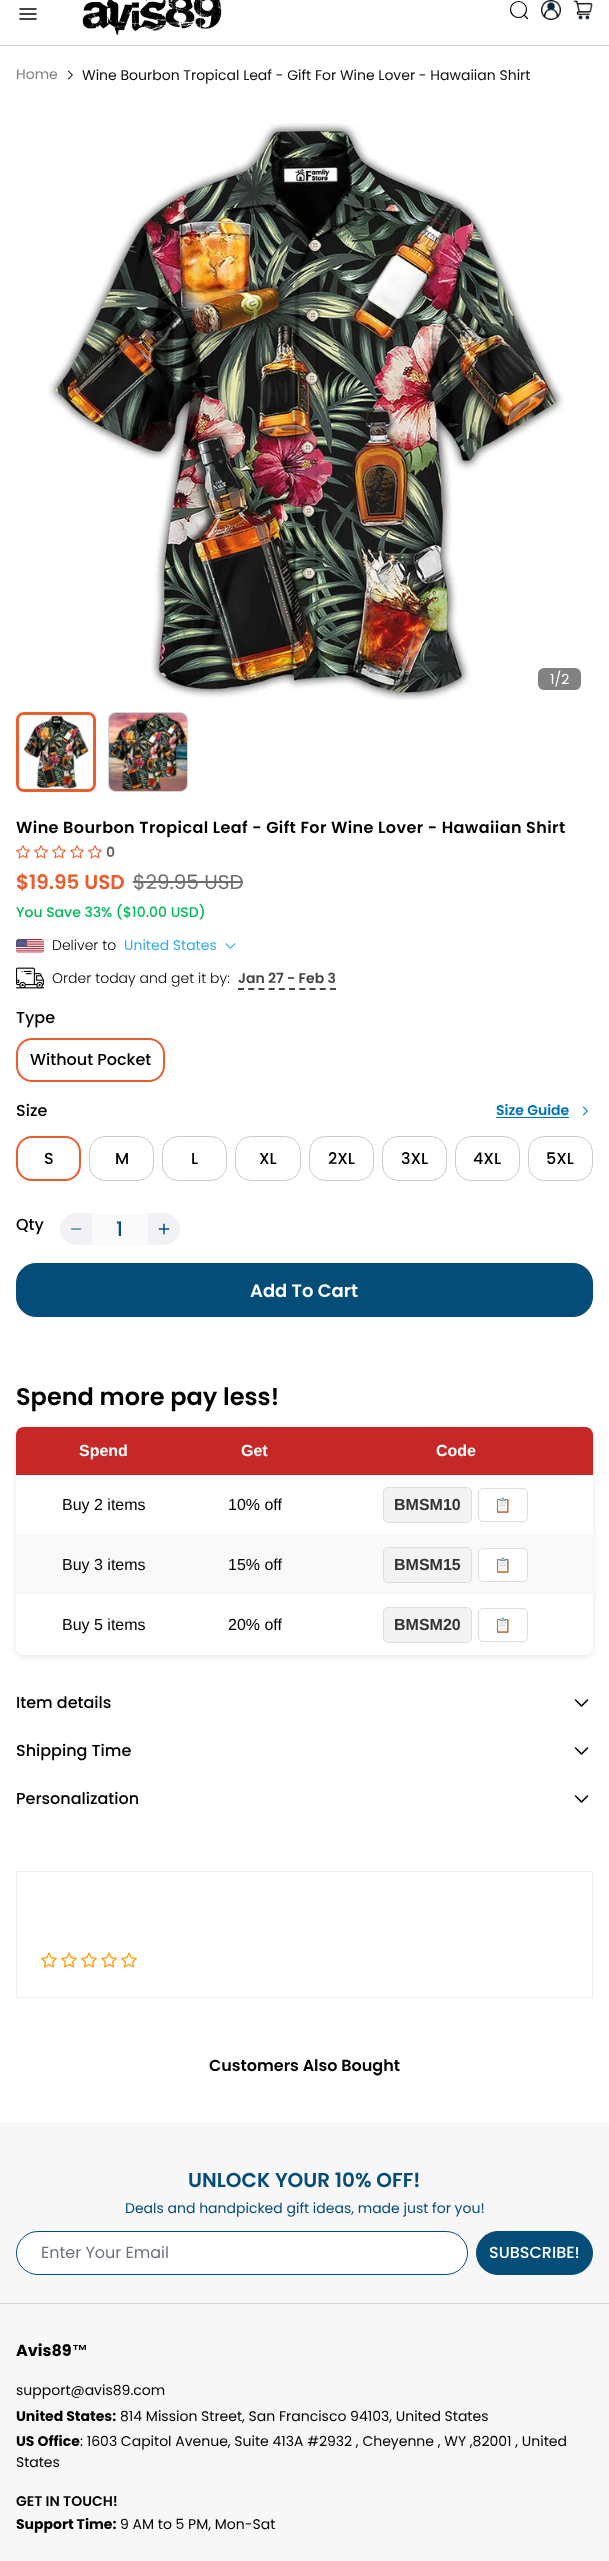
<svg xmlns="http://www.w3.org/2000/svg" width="609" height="2561">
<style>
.a{font:14px Poppins;fill:#808080}
.b{font:14px Poppins;fill:#0f0f0f}
.c{font:14px Poppins;fill:#fff}
.d{font:600 16px Poppins;letter-spacing:0.4px;fill:#000}
.e{font:600 14px Poppins;fill:#626262}
.f{font:600 20px Poppins;fill:#e95d2c}
.g{font:20px Poppins;fill:#6e6e6e}
.h{font:500 14px Poppins;fill:#00b958}
.i{font:300 14px Poppins;fill:#000}
.j{font:14px Poppins;fill:#32ade6}
.k{font:600 14px Poppins;fill:#444}
.l{font:500 16px Poppins;fill:#000}
.m{font:600 14px Poppins;fill:#0070ba}
.n{font:500 20px Poppins;fill:#044d79}
.o{font:600 18px Poppins;fill:#fff}
.p{font:600 24px Poppins;fill:#000}
.q{font:bold 16px Liberation Sans;fill:#fff}
.r{font:16px Liberation Sans;fill:#000}
.s{font:bold 16px Liberation Sans;fill:#333}
.t{font:14px Noto Color Emoji;fill:#000}
.u{font:600 16px Poppins;fill:#000}
.v{font:600 20px Poppins;fill:#044d79}
.w{font:14px Poppins;fill:#044d79}
.x{font:16px Poppins;fill:#6b7280}
.y{font:500 16px Poppins;fill:#fff}
.z{font:bold 16px Poppins;fill:#000}
.a1{font:bold 16px Liberation Sans;fill:#000}
.b1{font:14px Poppins;fill:#000}
.c1{font:bold 14px Poppins;fill:#000}
.d1{font:600 14px Poppins;fill:#000}
</style>
<defs>
<clipPath id="clip1"><path d="M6 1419h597v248h-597zm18 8h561c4.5 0 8 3.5 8 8v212c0 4.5-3.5 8-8 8h-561c-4.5 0-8-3.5-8-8v-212c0-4.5 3.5-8 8-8z" clip-rule="evenodd"/></clipPath>
</defs>
<rect width="100%" height="100%" fill="#fff"/>
<path fill="#ccc" d="M0 45h609v1H0z"/>
<image href="1.png" x="19" y="8" width="18" height="12"/>
<image href="2.png" x="82" y="0" width="140" height="35"/>
<circle fill="none" stroke="#000" stroke-width="1.2" cx="518.5" cy="9.5" r="8"/>
<path fill="none" stroke="#000" stroke-width="1.2" stroke-linecap="round" d="M524.5 15.5l3 3"/>
<image href="3.png" x="541" y="0" width="20" height="20"/>
<image href="4.png" x="573" y="0" width="20" height="20"/>
<image href="5.png" x="67" y="70" width="6" height="10"/>
<image href="6.png" x="48" y="123" width="516" height="577"/>
<rect fill="#828282" x="538" y="668" width="43" height="22" rx="6"/>
<rect fill="none" stroke="#e95d2c" stroke-width="3" x="17.5" y="713.5" width="77" height="77" rx="6.5"/>
<image href="7.png" x="19" y="715" width="74" height="74"/>
<rect fill="#d1d5db" x="108" y="712" width="80" height="80" rx="8"/>
<image href="8.png" x="109" y="713" width="78" height="78"/>
<image href="9.png" x="16" y="845" width="14" height="14"/>
<image href="9.png" x="34" y="845" width="14" height="14"/>
<image href="9.png" x="52" y="845" width="14" height="14"/>
<image href="9.png" x="70" y="845" width="14" height="14"/>
<image href="9.png" x="88" y="845" width="14" height="14"/>
<path fill="#6e6e6e" d="M133 881h110v2H133z"/>
<image href="10.png" x="16" y="939" width="28" height="14"/>
<image href="11.png" x="225" y="943" width="11" height="6"/>
<image href="12.png" x="16" y="967" width="28" height="22"/>
<path fill="none" stroke="#444" stroke-width="2" stroke-dasharray="6 4.22" d="M238 989h98"/>
<rect fill="none" stroke="#e95d2c" stroke-width="2" x="17" y="1039" width="147" height="42" rx="15"/>
<path fill="#0070ba" d="M496 1117h73v1H496z"/>
<image href="13.png" x="582" y="1106" width="6" height="10"/>
<rect fill="none" stroke="#e95d2c" stroke-width="2" x="17" y="1137" width="63" height="43" rx="15"/>
<rect fill="none" stroke="#ccc" x="89.5" y="1136.5" width="64" height="44" rx="15.5"/>
<rect fill="none" stroke="#ccc" x="162.5" y="1136.5" width="64" height="44" rx="15.5"/>
<rect fill="none" stroke="#ccc" x="235.5" y="1136.5" width="65" height="44" rx="15.5"/>
<rect fill="none" stroke="#ccc" x="309.5" y="1136.5" width="64" height="44" rx="15.5"/>
<rect fill="none" stroke="#ccc" x="382.5" y="1136.5" width="64" height="44" rx="15.5"/>
<rect fill="none" stroke="#ccc" x="455.5" y="1136.5" width="64" height="44" rx="15.5"/>
<rect fill="none" stroke="#ccc" x="528.5" y="1136.5" width="64" height="44" rx="15.5"/>
<path fill="#f2f2f6" stroke="#f2f2f6" d="M76 1213.5h15.5v31h-15.5c-8.5 0-15.5-7-15.5-15.5c0-8.5 7-15.5 15.5-15.5z"/>
<image href="14.png" x="71" y="1228" width="11" height="2"/>
<path fill="#fafafb" d="M92 1213h56v32H92z"/>
<path fill="#f2f2f6" stroke="#f2f2f6" d="M148.5 1213.5h15.5c8.5 0 15.5 7 15.5 15.5c0 8.5-7 15.5-15.5 15.5h-15.5z"/>
<image href="15.png" x="158" y="1223" width="12" height="12"/>
<rect fill="#044d79" stroke="#044d79" x="16.5" y="1263.5" width="576" height="53" rx="19.5"/>
<g clip-path="url(#clip1)">
<rect fill="#0000001a" filter="blur(3px)" x="16" y="1429" width="577" height="228" rx="8"/>
</g>
<path fill="#c62828" d="M24 1427h561c4.5 0 8 3.5 8 8v40h-577v-40c0-4.5 3.5-8 8-8z"/>
<rect fill="#f3f3f3" stroke="#ddd" x="383.5" y="1487.5" width="88" height="35" rx="4.5"/>
<rect fill="none" stroke="#ddd" x="478.5" y="1488.5" width="49" height="33" rx="4.5"/>
<path fill="#f9f9f9" d="M16 1535h577v60H16z"/>
<rect fill="#f3f3f3" stroke="#ddd" x="383.5" y="1547.5" width="88" height="35" rx="4.5"/>
<rect fill="#fff" stroke="#ddd" x="478.5" y="1548.5" width="49" height="33" rx="4.5"/>
<rect fill="#f3f3f3" stroke="#ddd" x="383.5" y="1607.5" width="88" height="35" rx="4.5"/>
<rect fill="none" stroke="#ddd" x="478.5" y="1608.5" width="49" height="33" rx="4.5"/>
<image href="16.png" x="574" y="1699" width="15" height="8"/>
<image href="16.png" x="574" y="1747" width="15" height="8"/>
<image href="16.png" x="574" y="1795" width="15" height="8"/>
<path fill="none" stroke="#eee" d="M16.5 1871.5h576v126H16.5z"/>
<image href="17.png" x="41" y="1952" width="16" height="16"/>
<image href="17.png" x="61" y="1952" width="16" height="16"/>
<image href="17.png" x="81" y="1952" width="16" height="16"/>
<image href="17.png" x="101" y="1952" width="16" height="16"/>
<image href="17.png" x="121" y="1952" width="16" height="16"/>
<path fill="#f7f7f7" d="M0 2122h609v181H0z"/>
<rect fill="#fff" stroke="#044d79" x="16.5" y="2231.5" width="451" height="43" rx="21.5"/>
<rect fill="#044d79" stroke="#044d79" x="476.5" y="2231.5" width="116" height="43" rx="21.5"/>
<path fill="#f7f7f7" d="M0 2304h609v257H0z"/>
<path fill="#d6d6d6" d="M0 2303h609v1H0z"/>
<text class="a" x="16" y="79">Home</text>
<text class="b" x="82" y="80">Wine Bourbon Tropical Leaf - Gift For Wine Lover - Hawaiian Shirt</text>
<text class="c" x="550" y="684">1/2</text>
<text class="d" x="16" y="833">Wine Bourbon Tropical Leaf - Gift For Wine Lover - Hawaiian Shirt</text>
<text class="e" x="106" y="857">0</text>
<text class="f" x="16" y="889">$19.95 USD</text>
<text class="g" x="133" y="889">$29.95 USD</text>
<text class="h" x="16" y="917">You Save 33% ($10.00 USD)</text>
<text class="i" x="52" y="950">Deliver to</text>
<text class="j" x="124" y="950">United States</text>
<text class="i" x="52" y="983">Order today and get it by:</text>
<text class="k" x="238" y="983">Jan 27 - Feb 3</text>
<text class="l" x="16" y="1023">Type</text>
<text class="l" x="30" y="1065">Without Pocket</text>
<text class="l" x="16" y="1116">Size</text>
<text class="m" x="496" y="1115">Size Guide</text>
<text class="l" x="44" y="1164">S</text>
<text class="l" x="115" y="1164">M</text>
<text class="l" x="191" y="1164">L</text>
<text class="l" x="259" y="1164">XL</text>
<text class="l" x="328" y="1164">2XL</text>
<text class="l" x="401" y="1164">3XL</text>
<text class="l" x="473" y="1164">4XL</text>
<text class="l" x="546" y="1164">5XL</text>
<text class="l" x="16" y="1230">Qty</text>
<text class="n" x="116" y="1236">1</text>
<text class="o" x="250" y="1297">Add To Cart</text>
<text class="p" x="16" y="1405">Spend more pay less!</text>
<text class="q" x="79" y="1456">Spend</text>
<text class="q" x="241" y="1456">Get</text>
<text class="q" x="436" y="1456">Code</text>
<text class="r" x="62" y="1510">Buy 2 items</text>
<text class="r" x="228" y="1510">10% off</text>
<text class="s" x="394" y="1510">BMSM10</text>
<text class="t" x="494" y="1510">📋</text>
<text class="r" x="62" y="1570">Buy 3 items</text>
<text class="r" x="228" y="1570">15% off</text>
<text class="s" x="394" y="1570">BMSM15</text>
<text class="t" x="494" y="1570">📋</text>
<text class="r" x="62" y="1630">Buy 5 items</text>
<text class="r" x="228" y="1630">20% off</text>
<text class="s" x="394" y="1630">BMSM20</text>
<text class="t" x="494" y="1630">📋</text>
<text class="l" x="16" y="1708">Item details</text>
<text class="l" x="16" y="1756">Shipping Time</text>
<text class="l" x="16" y="1804">Personalization</text>
<text class="u" x="209" y="2071">Customers Also Bought</text>
<text class="v" x="188" y="2187">UNLOCK YOUR 10% OFF!</text>
<text class="w" x="125" y="2213">Deals and handpicked gift ideas, made just for you!</text>
<text class="x" x="41" y="2258">Enter Your Email</text>
<text class="y" x="489" y="2258">SUBSCRIBE!</text>
<text class="z" x="16" y="2356">Avis89</text>
<text class="a1" x="72" y="2356">™</text>
<text class="b1" x="16" y="2395">support@avis89.com</text>
<text class="c1" x="16" y="2421">United States:</text>
<text class="b1" x="120" y="2421">814 Mission Street, San Francisco 94103, United States</text>
<text class="c1" x="16" y="2446">US Office</text>
<text class="b1" x="80" y="2446">: 1603 Capitol Avenue, Suite 413A #2932 , Cheyenne , WY ,82001 , United</text>
<text class="b1" x="16" y="2467">States</text>
<text class="d1" x="16" y="2506">GET IN TOUCH!</text>
<text class="c1" x="16" y="2529">Support Time:</text>
<text class="b1" x="120" y="2529">9 AM to 5 PM, Mon-Sat</text>
</svg>
